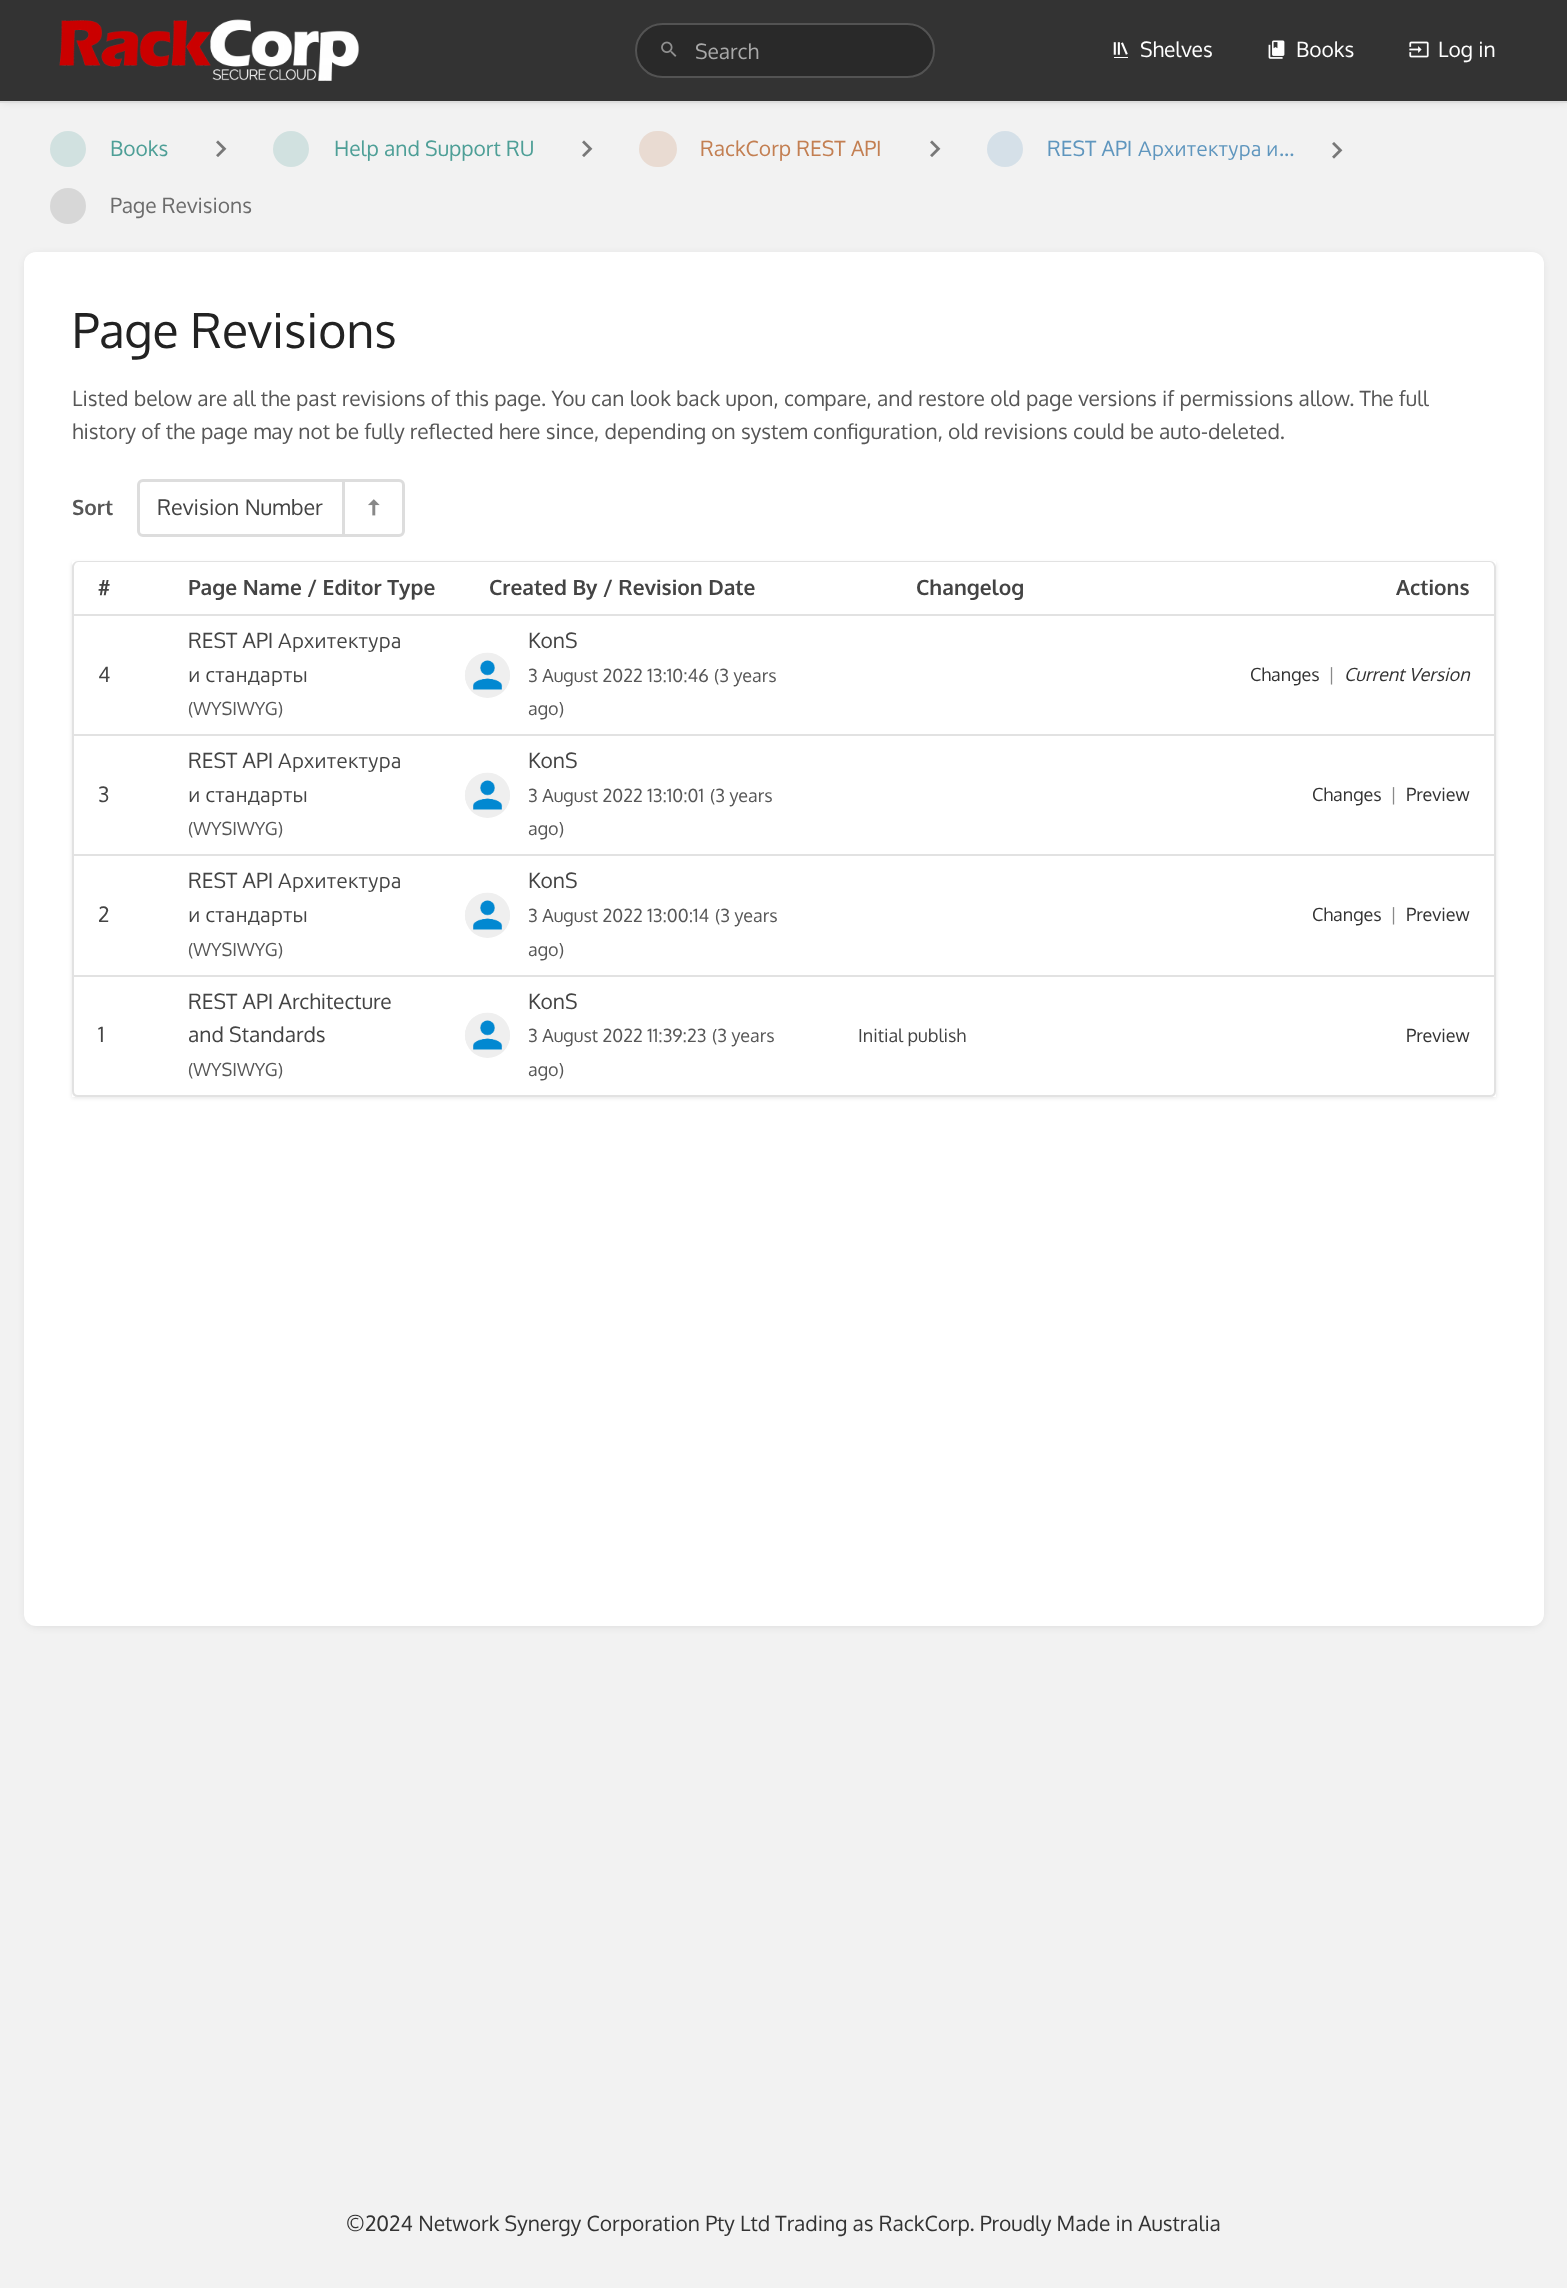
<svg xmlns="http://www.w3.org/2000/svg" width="1567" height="2288">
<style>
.a{font:21px Oxygen;fill:#a9a9a9}
.b{font:21px Oxygen;fill:#fff}
.c{font:21px Oxygen;fill:#4e9f97}
.d{font:21px Oxygen;fill:#c37f52}
.e{font:21px Oxygen;fill:#5f96be}
.f{font:21px Ubuntu;fill:#5f96be}
.g{font:21px Oxygen;fill:#6c6c6c}
.h{font:48px Oxygen;fill:#222}
.i{font:21px Oxygen;fill:#575757}
.j{font:bold 21px Oxygen;fill:#575757}
.k{font:21.5px Oxygen;fill:#444}
.l{font:bold 21px Oxygen;fill:#444}
.m{font:21px Oxygen;fill:#444}
.n{font:21px Ubuntu;fill:#444}
.o{font:18px Oxygen;fill:#575757}
.p{font:18px Oxygen;fill:#333}
.q{font:18px Oxygen;fill:#898989}
.r{font:italic 18px Oxygen;fill:#333}
.s{font:18px Oxygen;fill:#444}
.t{font:21px Oxygen;fill:#333}
</style>
<defs>
<clipPath id="clip1"><path d="M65 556h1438v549h-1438zm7 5h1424v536h-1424z" clip-rule="evenodd"/></clipPath>
</defs>
<rect width="100%" height="100%" fill="#f2f2f2"/>
<path fill="#0000001a" filter="blur(4.5px)" d="M2 3h1564v99H2z"/>
<path fill="#333" d="M0 0h1567v101H0z"/>
<path fill="#ddd" d="M0 101h1567v2H0z"/>
<image href="1.png" x="59" y="19" width="301" height="62"/>
<rect fill="#292929" x="635" y="23" width="300" height="55" rx="27.5"/>
<rect fill="none" stroke="#ffffff33" stroke-width="2" x="636" y="24" width="298" height="53" rx="26.5"/>
<image href="2.png" x="661" y="41" width="16" height="16"/>
<image href="3.png" x="1113" y="42" width="15" height="16"/>
<image href="4.png" x="1268" y="40" width="17" height="19"/>
<image href="5.png" x="1409" y="41" width="20" height="17"/>
<circle fill="#d1e1e0" cx="68" cy="149" r="18"/>
<image href="6.png" x="216" y="140" width="11" height="17"/>
<circle fill="#d1e1e0" cx="291" cy="149" r="18"/>
<image href="6.png" x="582" y="140" width="11" height="17"/>
<rect fill="#e9dbd2" x="639" y="131" width="38" height="36" rx="18"/>
<image href="6.png" x="930" y="140" width="11" height="17"/>
<circle fill="#d5e0e8" cx="1005" cy="149" r="18"/>
<image href="7.png" x="1332" y="142" width="11" height="17"/>
<circle fill="#d7d7d7" cx="68" cy="206" r="18"/>
<rect fill="#0000001a" filter="blur(4.5px)" x="26" y="255" width="1516" height="1371" rx="11"/>
<rect fill="#fff" x="24" y="252" width="1520" height="1374" rx="12"/>
<rect fill="none" stroke="#ddd" stroke-width="3" x="138.5" y="480.5" width="265" height="55" rx="4.5"/>
<path fill="#ddd" d="M342 482h3v52H342z"/>
<image href="8.png" x="368" y="499" width="12" height="17"/>
<g clip-path="url(#clip1)">
<path fill="#0000001a" filter="blur(2px)" d="M72 563h1424v535H72z"/>
</g>
<path fill="#e2e2e2" fill-rule="evenodd" d="M78 561h1412c3 0 6 3 6 6v47h-1424v-47c0-3 3-6 6-6zm0 1h1412c2 0 4 3 4 5v47h-1420v-47c0-2 2-5 4-5z"/>
<path fill="#e2e2e2" d="M72 614h1424v2H72z"/>
<path fill="#e2e2e2" d="M1494 614h2v120H1494z"/>
<path fill="#e2e2e2" d="M72 614h2v120H72z"/>
<circle fill="#eee" cx="487.5" cy="675.5" r="22.5"/>
<image href="9.png" x="465" y="652" width="45" height="38"/>
<path fill="#e2e2e2" d="M72 734h1424v2H72z"/>
<path fill="#e2e2e2" d="M1494 734h2v120H1494z"/>
<path fill="#e2e2e2" d="M72 734h2v120H72z"/>
<circle fill="#eee" cx="487.5" cy="795.5" r="22.5"/>
<image href="10.png" x="465" y="772" width="45" height="38"/>
<path fill="#e2e2e2" d="M72 854h1424v2H72z"/>
<path fill="#e2e2e2" d="M1494 854h2v121H1494z"/>
<path fill="#e2e2e2" d="M72 854h2v121H72z"/>
<circle fill="#eee" cx="487.5" cy="915.5" r="22.5"/>
<image href="9.png" x="465" y="892" width="45" height="38"/>
<path fill="none" stroke="#e2e2e2" stroke-width="2" d="M73 976h1422v115c0 3-2 5-5 5h-1412c-3 0-5-2-5-5z"/>
<circle fill="#eee" cx="487.5" cy="1035.5" r="22.5"/>
<image href="11.png" x="465" y="1012" width="45" height="38"/>
<text class="a" x="695" y="59">Search</text>
<text class="b" x="1140" y="57">Shelves</text>
<text class="b" x="1296" y="57">Books</text>
<text class="b" x="1438" y="57">Log in</text>
<text class="c" x="110" y="156">Books</text>
<text class="c" x="334" y="156">Help and Support RU</text>
<text class="d" x="700" y="156">RackCorp REST API</text>
<text class="e" x="1047" y="156">REST API</text>
<text class="f" x="1138" y="156">Архитектура</text>
<text class="f" x="1266" y="156">и</text>
<text class="e" x="1279" y="156">...</text>
<text class="g" x="110" y="213">Page Revisions</text>
<text class="h" x="72" y="348">Page Revisions</text>
<text class="i" x="72" y="406">Listed below are all the past revisions of this page. You can look back upon, compare, and restore old page versions if permissions allow. The full</text>
<text class="i" x="72" y="439">history of the page may not be fully reflected here since, depending on system configuration, old revisions could be auto-deleted.</text>
<text class="j" x="72" y="515">Sort</text>
<text class="k" x="157" y="515">Revision Number</text>
<text class="l" x="98" y="595">#</text>
<text class="l" x="188" y="595">Page Name / Editor Type</text>
<text class="l" x="489" y="595">Created By / Revision Date</text>
<text class="l" x="916" y="595">Changelog</text>
<text class="l" x="1396" y="595">Actions</text>
<text class="m" x="98" y="682">4</text>
<text class="m" x="188" y="648">REST API</text>
<text class="n" x="278" y="648">Архитектура</text>
<text class="n" x="188" y="682">и стандарты</text>
<text class="o" x="188" y="715">(WYSIWYG)</text>
<text class="m" x="528" y="648">KonS</text>
<text class="o" x="528" y="682">3 August 2022 13:10:46</text>
<text class="o" x="714" y="682">(3 years</text>
<text class="o" x="528" y="715">ago)</text>
<text class="p" x="1250" y="681">Changes</text>
<text class="q" x="1328" y="681">|</text>
<text class="r" x="1344" y="681">Current Version</text>
<text class="m" x="98" y="802">3</text>
<text class="m" x="188" y="768">REST API</text>
<text class="n" x="278" y="768">Архитектура</text>
<text class="n" x="188" y="802">и стандарты</text>
<text class="o" x="188" y="835">(WYSIWYG)</text>
<text class="m" x="528" y="768">KonS</text>
<text class="o" x="528" y="802">3 August 2022 13:10:01</text>
<text class="o" x="710" y="802">(3 years</text>
<text class="o" x="528" y="835">ago)</text>
<text class="p" x="1312" y="801">Changes</text>
<text class="q" x="1390" y="801">|</text>
<text class="p" x="1406" y="801">Preview</text>
<text class="m" x="98" y="922">2</text>
<text class="m" x="188" y="888">REST API</text>
<text class="n" x="278" y="888">Архитектура</text>
<text class="n" x="188" y="922">и стандарты</text>
<text class="o" x="188" y="956">(WYSIWYG)</text>
<text class="m" x="528" y="888">KonS</text>
<text class="o" x="528" y="922">3 August 2022 13:00:14</text>
<text class="o" x="715" y="922">(3 years</text>
<text class="o" x="528" y="956">ago)</text>
<text class="p" x="1312" y="921">Changes</text>
<text class="q" x="1390" y="921">|</text>
<text class="p" x="1406" y="921">Preview</text>
<text class="m" x="98" y="1042">1</text>
<text class="m" x="188" y="1009">REST API Architecture</text>
<text class="m" x="188" y="1042">and Standards</text>
<text class="o" x="188" y="1076">(WYSIWYG)</text>
<text class="m" x="528" y="1009">KonS</text>
<text class="o" x="528" y="1042">3 August 2022 11:39:23</text>
<text class="o" x="712" y="1042">(3 years</text>
<text class="o" x="528" y="1076">ago)</text>
<text class="s" x="858" y="1042">Initial publish</text>
<text class="p" x="1406" y="1042">Preview</text>
<text class="t" x="346" y="2231">©2024 Network Synergy Corporation Pty Ltd Trading as RackCorp. Proudly Made in Australia</text>
</svg>
